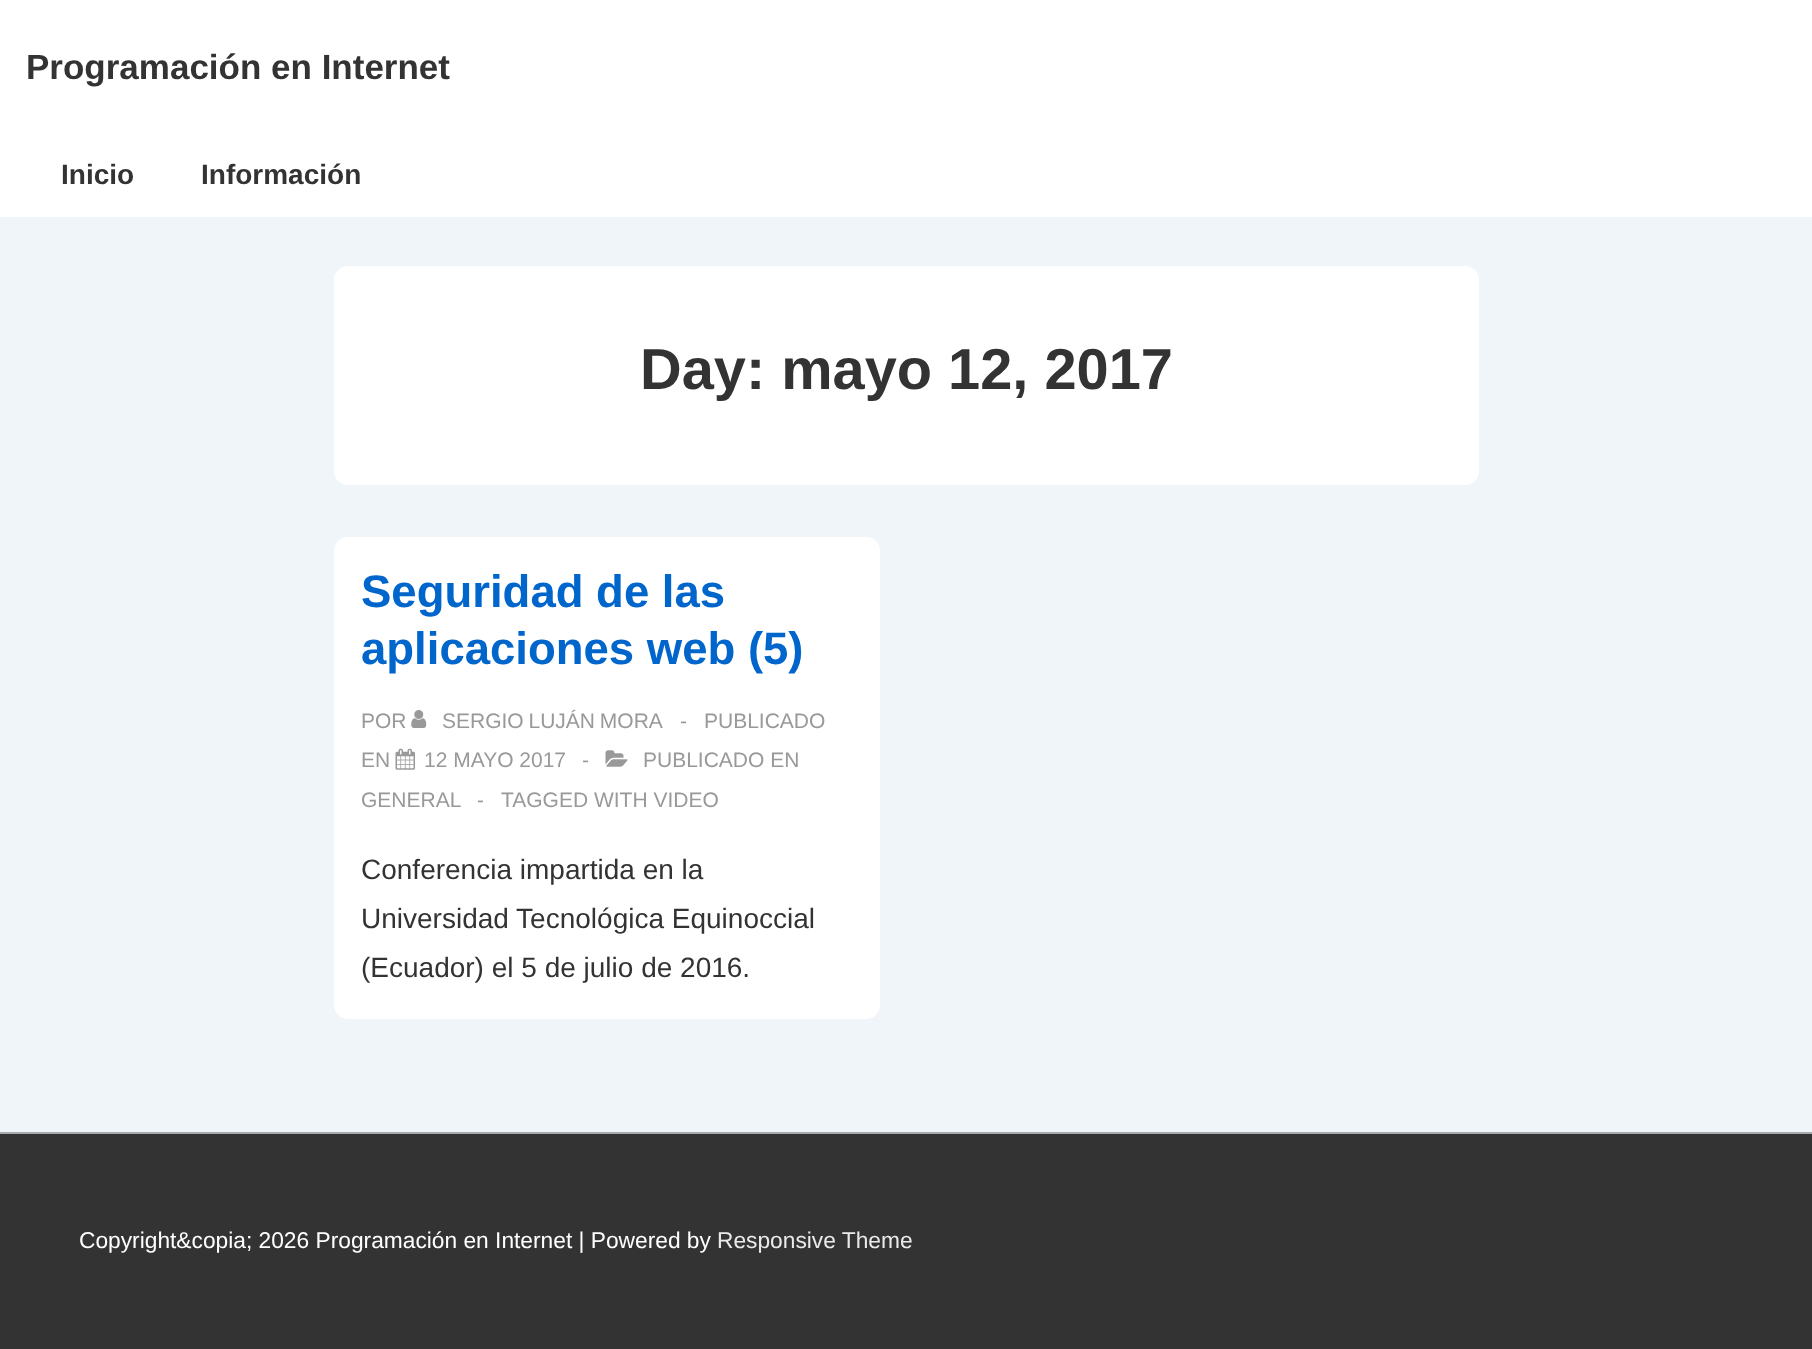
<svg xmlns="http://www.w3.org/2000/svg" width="1812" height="1349">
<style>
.a{font:bold 35px Liberation Sans;fill:#333}
.b{font:bold 28px Liberation Sans;fill:#333}
.c{font:bold 57.75px Liberation Sans;fill:#333}
.d{font:bold 45.5px Liberation Sans;fill:#06c}
.e{font:21px Liberation Sans;fill:#999}
.f{font:28px Liberation Sans;fill:#333}
.g{font:22.75px Liberation Sans;fill:#fff}
.h{font:22.75px Liberation Sans;fill:#eaeaea}
</style>
<rect width="100%" height="100%" fill="#f0f5fa"/>
<path fill="#fff" d="M0 0h1812v217H0z"/>
<rect fill="#fff" x="334" y="266" width="1145" height="219" rx="14"/>
<rect fill="#fff" x="334" y="537" width="546" height="482" rx="14"/>
<image href="1.png" x="411" y="710" width="16" height="18"/>
<image href="2.png" x="395" y="748" width="20" height="22"/>
<image href="3.png" x="605" y="750" width="23" height="17"/>
<path fill="#333" d="M0 1134h1812v215H0z"/>
<path fill="#aaa" d="M0 1132h1812v2H0z"/>
<text class="a" x="26" y="79">Programación en Internet</text>
<text class="b" x="61" y="184">Inicio</text>
<text class="b" x="201" y="184">Información</text>
<text class="c" x="640" y="389">Day: mayo 12, 2017</text>
<text class="d" x="361" y="607">Seguridad de las</text>
<text class="d" x="361" y="664">aplicaciones web (5)</text>
<text class="e" x="361" y="728">POR</text>
<text class="e" x="442" y="728" word-spacing="-1">SERGIO LUJÁN MORA</text>
<text class="e" x="680" y="728">-</text>
<text class="e" x="704" y="728">PUBLICADO</text>
<text class="e" x="361" y="767">EN</text>
<text class="e" x="424" y="767">12 MAYO 2017</text>
<text class="e" x="582" y="767">-</text>
<text class="e" x="643" y="767">PUBLICADO EN</text>
<text class="e" x="361" y="807">GENERAL</text>
<text class="e" x="477" y="807">-</text>
<text class="e" x="501" y="807">TAGGED WITH VIDEO</text>
<text class="f" x="361" y="879">Conferencia impartida en la</text>
<text class="f" x="361" y="928">Universidad Tecnológica Equinoccial</text>
<text class="f" x="361" y="977">(Ecuador) el 5 de julio de 2016.</text>
<text class="g" x="79" y="1248">Copyright&amp;copia; 2026 Programación en Internet | Powered by</text>
<text class="h" x="717" y="1248">Responsive Theme</text>
</svg>
